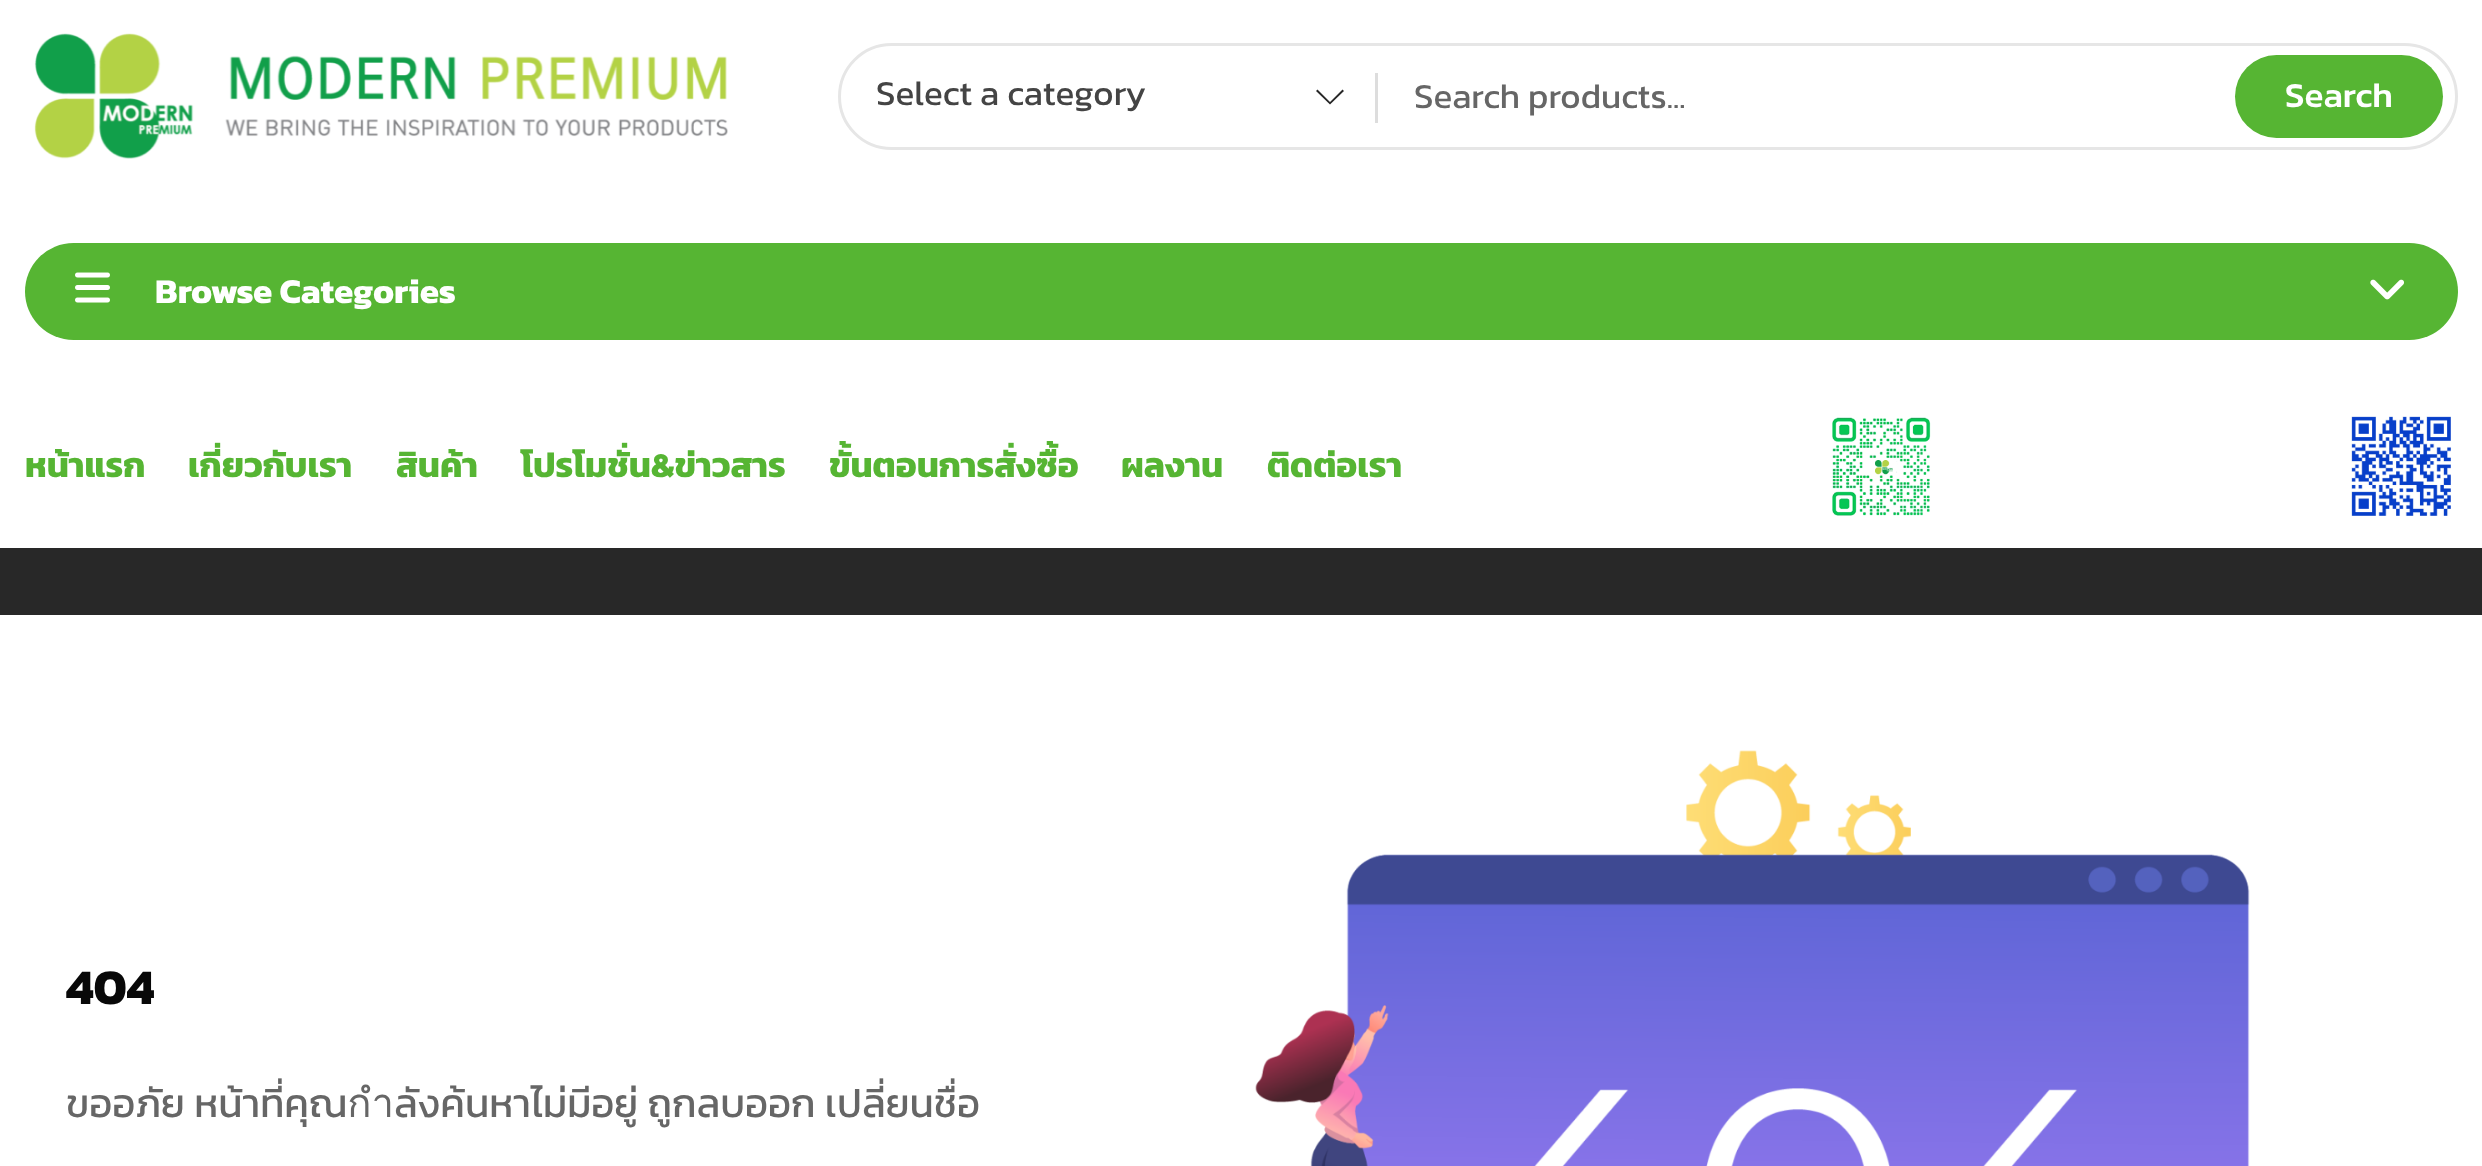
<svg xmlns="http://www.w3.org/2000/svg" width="2482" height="1166">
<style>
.a{font:35px Kanit;fill:#444}
.b{font:35px Kanit;fill:#666}
.c{font:500 35px Kanit;fill:#fff}
.d{font:bold 35px Kanit;fill:#fff}
.e{font:bold 35px Kanit;fill:#56b533}
.f{font:bold 50px Kanit;fill:#080808}
.g{font:40px Kanit;fill:#666}
</style>
<rect width="100%" height="100%" fill="#fff"/>
<image href="1.png" x="34" y="33" width="694" height="126"/>
<rect fill="none" stroke="#e6e6e6" stroke-width="3" x="839.5" y="44.5" width="1617" height="104" rx="52"/>
<path fill="#282828" d="M1344 91l-14 13.5l-14-13.5l1.5-1.5l12.5 12.5l12.5-12.5z"/>
<path fill="#ddd" d="M1375 73h3v50H1375z"/>
<rect fill="#56b533" x="2235" y="55" width="208" height="83" rx="41.5"/>
<rect fill="#56b533" x="25" y="243" width="2433" height="97" rx="48.5"/>
<image href="2.png" x="75" y="272" width="35" height="31"/>
<image href="3.png" x="2370" y="279" width="34" height="21"/>
<image href="4.png" x="1832" y="417" width="99" height="99"/>
<image href="5.png" x="2351" y="416" width="100" height="100"/>
<path fill="#282828" d="M0 548h2482v67H0z"/>
<image href="6.png" x="1255" y="750" width="995" height="416"/>
<text class="a" x="876" y="105">Select a category</text>
<text class="b" x="1414" y="108">Search products...</text>
<text class="c" x="2285" y="107">Search</text>
<text class="d" x="155" y="303">Browse Categories</text>
<text class="e" x="25" y="477">หน้าแรก</text>
<text class="e" x="188" y="477">เกี่ยวกับเรา</text>
<text class="e" x="396" y="477">สินค้า</text>
<text class="e" x="521" y="477">โปรโมชั่น&amp;ข่าวสาร</text>
<text class="e" x="829" y="477">ขั้นตอนการสั่งซื้อ</text>
<text class="e" x="1121" y="477">ผลงาน</text>
<text class="e" x="1267" y="477">ติดต่อเรา</text>
<text class="f" x="66" y="1004">404</text>
<text class="g" x="66" y="1117">ขออภัย หน้าที่คุณกำลังค้นหาไม่มีอยู่ ถูกลบออก เปลี่ยนชื่อ</text>
</svg>
